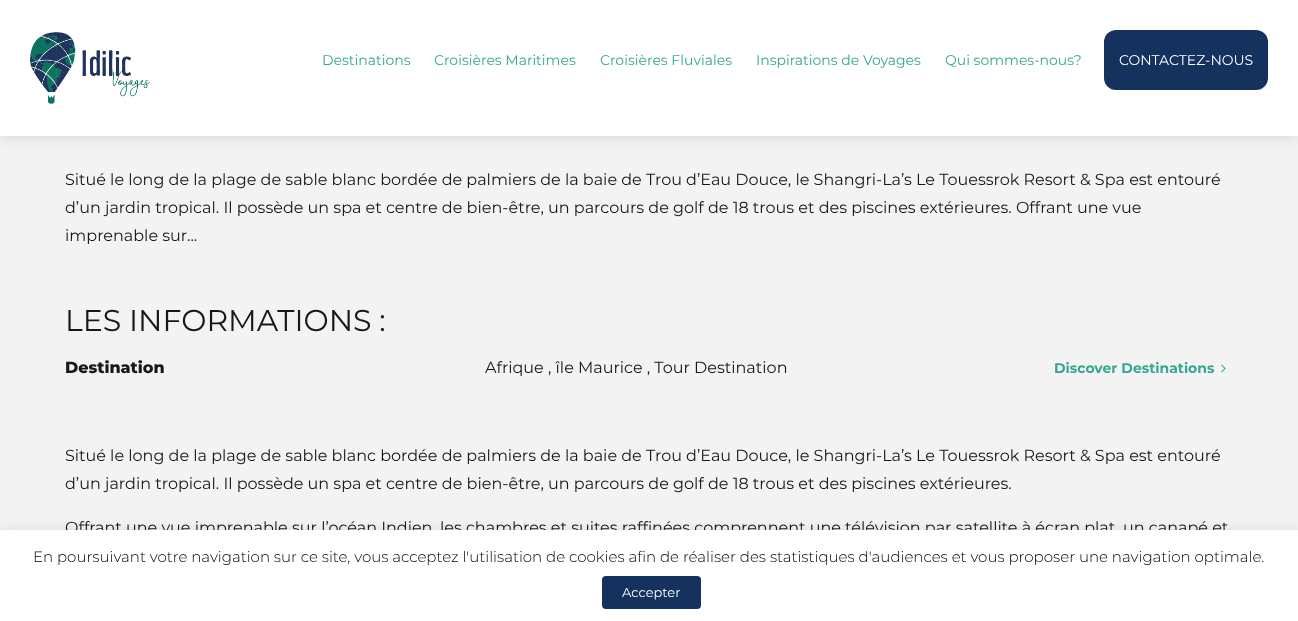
<svg xmlns="http://www.w3.org/2000/svg" width="1298" height="621">
<style>
.a{font:14px Montserrat;fill:#37a790}
.b{font:14px Montserrat;fill:#fff}
.c{font:16px Montserrat;fill:#181818}
.d{font:30px Montserrat;fill:#181818}
.e{font:800 16px Montserrat;fill:#181818}
.f{font:bold 14px Montserrat;fill:#37a790}
.g{font:300 15px Montserrat;fill:#000}
.h{font:13px Montserrat;fill:#fff}
</style>
<rect width="100%" height="100%" fill="#f3f3f3"/>
<path fill="#18181826" filter="blur(7.5px)" d="M0 0h1298v136H0z"/>
<path fill="#fff" d="M0 0h1298v136H0z"/>
<image href="1.png" x="30" y="32" width="120" height="72"/>
<rect fill="#15325e" x="1104" y="30" width="164" height="60" rx="12"/>
<image href="2.png" x="1221" y="364" width="5" height="9"/>
<path fill="#acabab4d" filter="blur(5px)" d="M0 529h1298v91H0z"/>
<text class="a" x="322" y="65">Destinations</text>
<text class="a" x="434" y="65">Croisières Maritimes</text>
<text class="a" x="600" y="65">Croisières Fluviales</text>
<text class="a" x="756" y="65">Inspirations de Voyages</text>
<text class="a" x="945" y="65">Qui sommes-nous?</text>
<text class="b" x="1119" y="65">CONTACTEZ-NOUS</text>
<text class="c" x="65" y="185">Situé le long de la plage de sable blanc bordée de palmiers de la baie de Trou d’Eau Douce, le Shangri-La’s Le Touessrok Resort &amp; Spa est entouré</text>
<text class="c" x="65" y="213">d’un jardin tropical. Il possède un spa et centre de bien-être, un parcours de golf de 18 trous et des piscines extérieures. Offrant une vue</text>
<text class="c" x="65" y="241">imprenable sur...</text>
<text class="d" x="65" y="331">LES INFORMATIONS :</text>
<text class="e" x="65" y="373">Destination</text>
<text class="c" x="485" y="373">Afrique , île Maurice , Tour Destination</text>
<text class="f" x="1054" y="373">Discover Destinations</text>
<text class="c" x="65" y="461">Situé le long de la plage de sable blanc bordée de palmiers de la baie de Trou d’Eau Douce, le Shangri-La’s Le Touessrok Resort &amp; Spa est entouré</text>
<text class="c" x="65" y="489">d’un jardin tropical. Il possède un spa et centre de bien-être, un parcours de golf de 18 trous et des piscines extérieures.</text>
<text class="c" x="65" y="533">Offrant une vue imprenable sur l’océan Indien, les chambres et suites raffinées comprennent une télévision par satellite à écran plat, un canapé et</text>
<path fill="#fff" d="M0 530h1298v91H0z"/>
<text class="g" x="33" y="562">En poursuivant votre navigation sur ce site, vous acceptez l'utilisation de cookies afin de réaliser des statistiques d'audiences et vous proposer une navigation optimale.</text>
<rect fill="#15325e" x="602" y="576" width="99" height="33" rx="4"/>
<text class="h" x="622" y="597">Accepter</text>
</svg>
